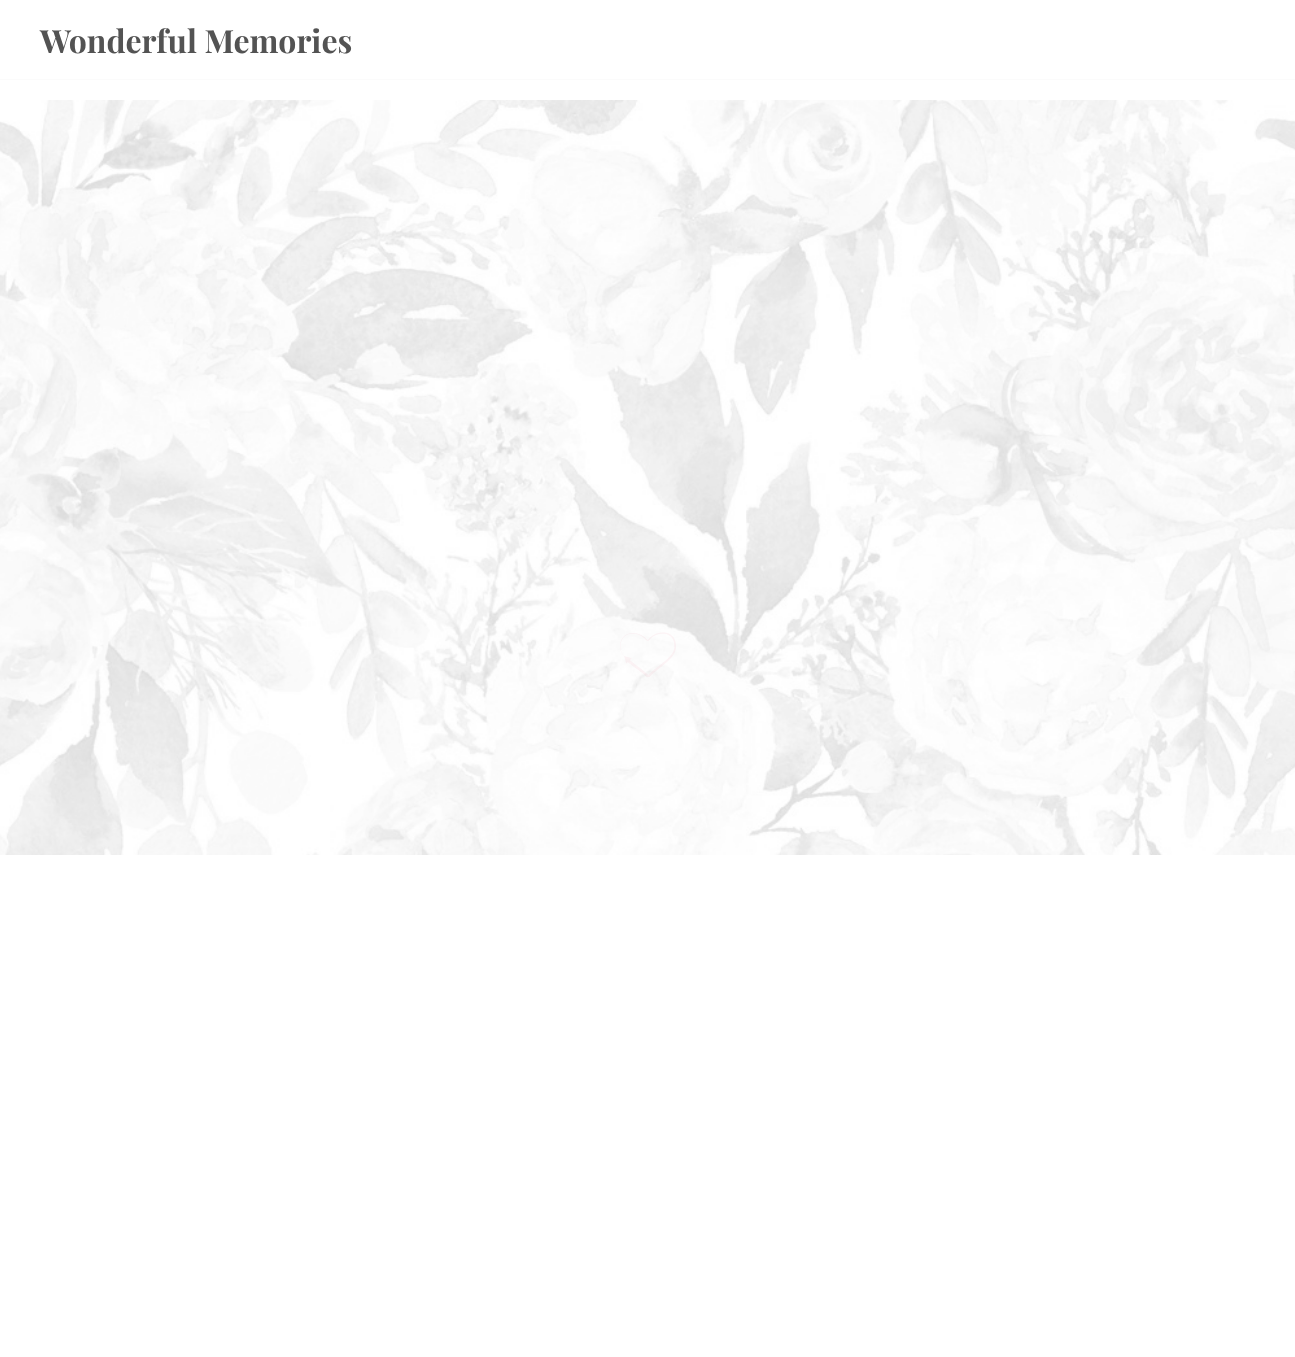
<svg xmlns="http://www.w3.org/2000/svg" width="1295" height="1357">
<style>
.a{font:bold 32px Playfair Display;fill:#535353}
</style>
<rect width="100%" height="100%" fill="#fff"/>
<path fill="#fbfbfb" d="M0 79h1295v1H0z"/>
<image href="1.png" x="0" y="100" width="1295" height="755"/>
<image href="2.png" x="620" y="632" width="56" height="45"/>
<text class="a" x="40" y="53">Wonderful Memories</text>
</svg>
